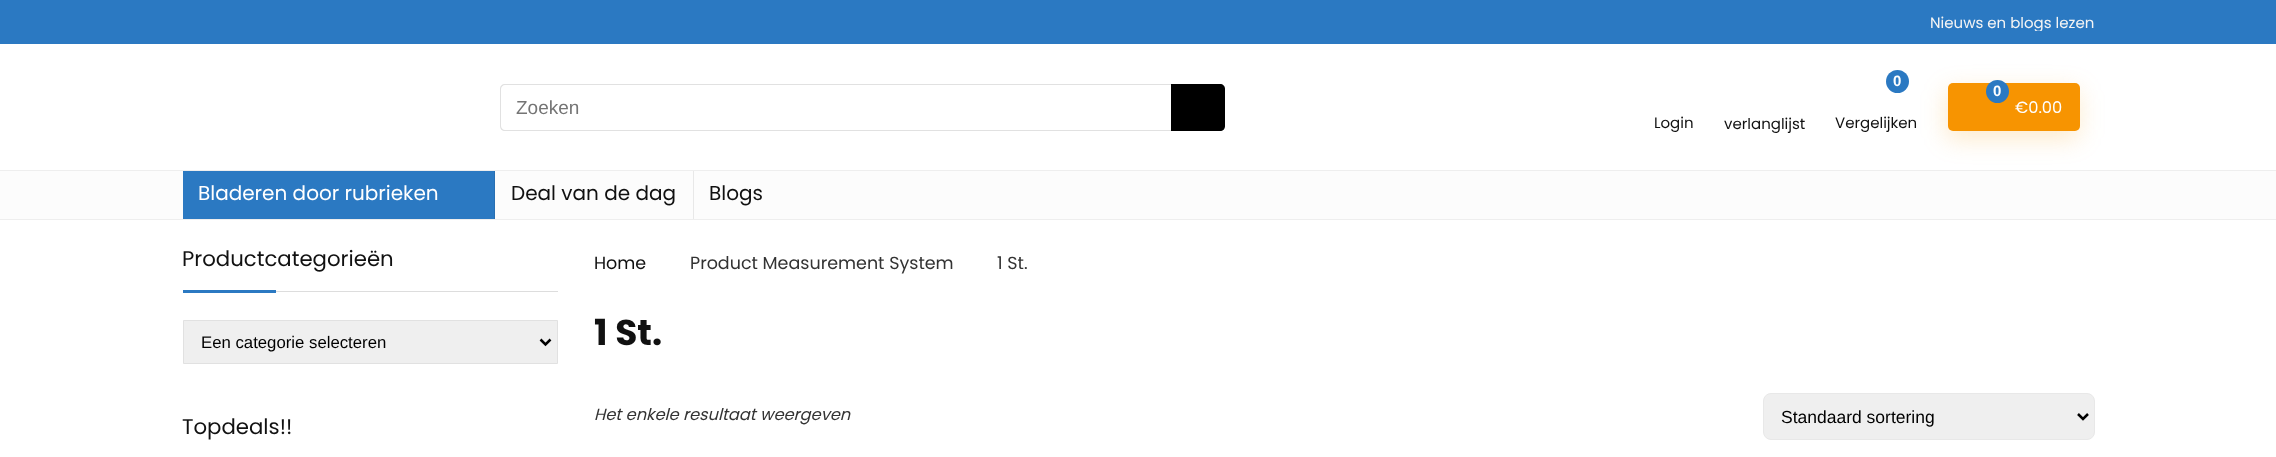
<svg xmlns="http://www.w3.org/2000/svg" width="2276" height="457">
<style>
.a{font:15px Poppins;fill:#f4f4f4}
.b{font:19px Liberation Sans;fill:#757575}
.c{font:bold 15px Liberation Sans;fill:#fff}
.d{font:15px Poppins;fill:#111}
.e{font:16.25px Poppins;fill:#fff}
.f{font:20px Poppins;fill:#fff}
.g{font:20px Poppins;fill:#111}
.h{font:21.25px Poppins;fill:#111}
.i{font:16.75px Liberation Sans;fill:#000}
.j{font:17.5px Poppins;fill:#111}
.k{font:17.5px Poppins;fill:#333}
.l{font:bold 36px Poppins;fill:#111}
.m{font:italic 16.25px Poppins;fill:#333}
.n{font:17.5px Liberation Sans;fill:#000}
</style>
<defs>
<clipPath id="clip1"><path d="M1930 13h165v18H1930z"/></clipPath>
</defs>
<rect width="100%" height="100%" fill="#fff"/>
<path fill="#2b79c2" d="M0 0h2276v44H0z"/>
<path fill="#e1e1e1" fill-rule="evenodd" d="M505 84h666v47h-666c-3 0-5-2-5-5v-37c0-3 2-5 5-5zm0 1h666v45h-666c-2 0-4-2-4-4v-37c0-2 2-4 4-4z"/>
<path fill="#000" d="M1171 84h49c3 0 5 2 5 5v37c0 3-2 5-5 5h-49z"/>
<circle fill="#2b79c2" cx="1897.5" cy="81.5" r="11.5"/>
<path fill="#fcfcfc" d="M0 171h2276v48H0z"/>
<path fill="#eee" d="M0 170h2276v1H0z"/>
<rect fill="#f7940133" filter="blur(12px)" x="1946" y="90" width="133" height="49" rx="5"/>
<rect fill="#f79401" x="1948" y="83" width="132" height="48" rx="5"/>
<circle fill="#2b79c2" cx="1997.5" cy="91.5" r="11.5"/>
<path fill="#eee" d="M0 219h2276v1H0z"/>
<path fill="#2b79c2" d="M183 171h311v48H183z"/>
<path fill="#286fb2" d="M494 171h1v48H494z"/>
<path fill="#e8e8e8" d="M693 171h1v48H693z"/>
<path fill="#ddd" d="M276 291h282v1H276z"/>
<path fill="#2b79c2" d="M183 290h93v3H183z"/>
<path fill="#efefef" stroke="#e1e1e1" d="M183.5 320.5h374v43H183.5z"/>
<path fill="none" stroke="#000" stroke-width="2.5" d="M540.5 339.5l5 5l5-5"/>
<rect fill="#efefef" stroke="#e8e8e8" x="1763.5" y="393.5" width="331" height="46" rx="7.5"/>
<path fill="none" stroke="#000" stroke-width="2.5" d="M2078 414l5 5l5-5"/>
<g clip-path="url(#clip1)">
<text class="a" x="1930" y="28">Nieuws en blogs lezen</text>
</g>
<text class="b" x="516" y="114">Zoeken</text>
<text class="c" x="1893" y="86">0</text>
<text class="d" x="1835" y="128">Vergelijken</text>
<text class="c" x="1993" y="96">0</text>
<text class="e" x="2015" y="113">€0.00</text>
<text class="d" x="1654" y="128">Login</text>
<text class="d" x="1724" y="129">verlanglijst</text>
<text class="f" x="198" y="200">Bladeren door rubrieken</text>
<text class="g" x="511" y="200">Deal van de dag</text>
<text class="g" x="709" y="200">Blogs</text>
<text class="h" x="182" y="266">Productcategorieën</text>
<text class="i" x="201" y="348">Een categorie selecteren</text>
<text class="h" x="182" y="434">Topdeals!!</text>
<text class="j" x="594" y="269">Home</text>
<text class="k" x="690" y="269">Product Measurement System</text>
<text class="k" x="997" y="269">1 St.</text>
<text class="l" x="594" y="345">1 St.</text>
<text class="m" x="594" y="420">Het enkele resultaat weergeven</text>
<text class="n" x="1781" y="423">Standaard sortering</text>
</svg>
